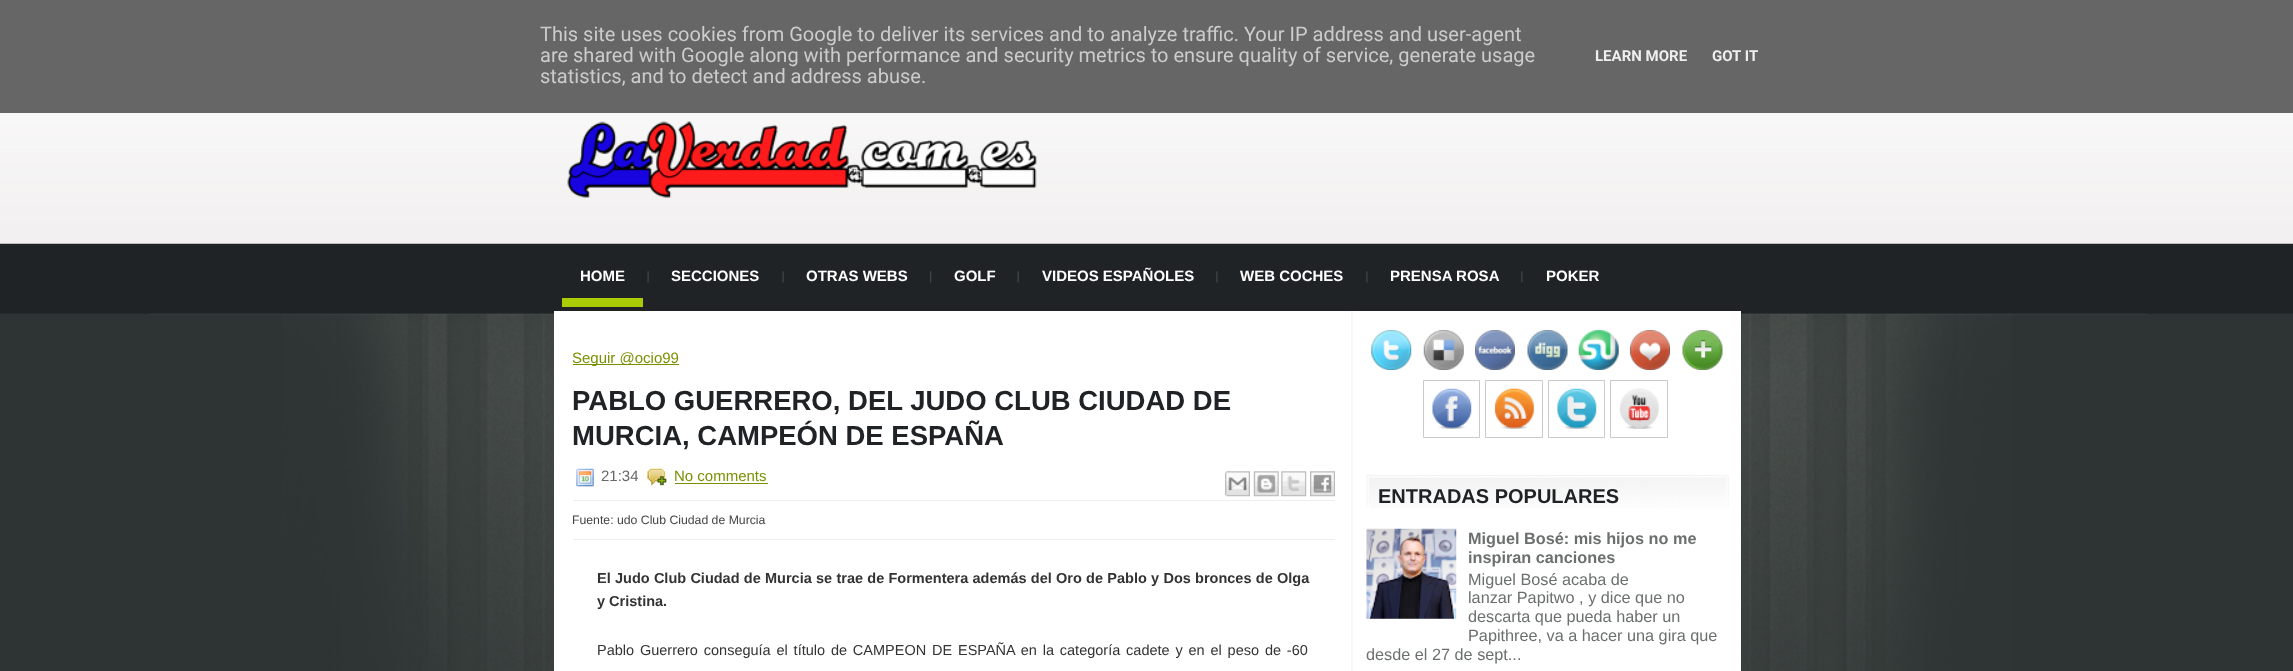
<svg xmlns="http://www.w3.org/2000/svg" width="2293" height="671">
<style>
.a{font:20px Roboto;fill:#ccc}
.b{font:bold 15px Roboto;fill:#eee}
.c{font:bold 15px Liberation Sans;fill:#fff}
.d{font:15px Liberation Sans;fill:#789102}
.e{font:bold 27.5px Liberation Sans;fill:#202326}
.f{font:15px Liberation Sans;fill:#666}
.g{font:12.25px Liberation Sans;fill:#434242}
.h{font:bold 14.5px Liberation Sans;fill:#333}
.i{font:14.5px Liberation Sans;fill:#333}
.j{font:bold 20px Liberation Sans;fill:#202326}
.k{font:bold 16.25px Liberation Sans;fill:#6b6f6e}
.l{font:16.25px Liberation Sans;fill:#6b6f6e}
</style>
<rect width="100%" height="100%" fill="#2e3434"/>
<image href="1.png" x="0" y="113" width="2293" height="201"/>
<path fill="#666" d="M0 0h2293v113H0z"/>
<image href="2.png" x="148" y="313" width="1999" height="358"/>
<image href="3.png" x="567" y="121" width="470" height="77"/>
<path fill="#a9cd02" d="M562 298h81v9H562z"/>
<image href="4.png" x="647" y="271" width="2" height="12"/>
<image href="4.png" x="782" y="271" width="2" height="12"/>
<image href="5.png" x="930" y="271" width="2" height="12"/>
<image href="4.png" x="1017" y="271" width="2" height="12"/>
<image href="6.png" x="1216" y="271" width="2" height="12"/>
<image href="6.png" x="1366" y="271" width="2" height="12"/>
<image href="6.png" x="1521" y="271" width="2" height="12"/>
<path fill="#fff" d="M554 311h1187v360H554z"/>
<image href="7.png" x="1351" y="311" width="2" height="360"/>
<path fill="#789102" d="M573 364h106v1H573z"/>
<image href="8.png" x="576" y="468" width="18" height="19"/>
<image href="9.png" x="647" y="468" width="20" height="18"/>
<path fill="#789102" d="M675 483h93v1H675z"/>
<image href="10.png" x="1225" y="471" width="25" height="26"/>
<image href="11.png" x="1253" y="471" width="26" height="26"/>
<image href="12.png" x="1281" y="471" width="26" height="26"/>
<image href="13.png" x="1310" y="471" width="25" height="26"/>
<path fill="#eee" d="M573 500h762v1H573z"/>
<path fill="#eee" d="M573 539h762v1H573z"/>
<image href="14.png" x="1371" y="330" width="41" height="40"/>
<image href="15.png" x="1423" y="330" width="41" height="40"/>
<image href="16.png" x="1475" y="330" width="40" height="40"/>
<image href="17.png" x="1527" y="330" width="41" height="40"/>
<image href="18.png" x="1578" y="330" width="41" height="40"/>
<image href="19.png" x="1630" y="330" width="40" height="40"/>
<image href="20.png" x="1682" y="330" width="41" height="40"/>
<path fill="none" stroke="#c7cbcc" d="M1423.5 380.5h56v57H1423.5z"/>
<path fill="none" stroke="#c7cbcc" d="M1485.5 380.5h57v57H1485.5z"/>
<path fill="none" stroke="#c7cbcc" d="M1548.5 380.5h56v57H1548.5z"/>
<path fill="none" stroke="#c7cbcc" d="M1610.5 380.5h57v57H1610.5z"/>
<image href="21.png" x="1432" y="388" width="40" height="41"/>
<image href="22.png" x="1494" y="388" width="40" height="41"/>
<image href="23.png" x="1557" y="388" width="40" height="41"/>
<image href="24.png" x="1620" y="388" width="39" height="41"/>
<image href="25.png" x="1366" y="475" width="363" height="33"/>
<image href="26.png" x="1366" y="528" width="91" height="91"/>
<text class="a" x="540" y="41">This site uses cookies from Google to deliver its services and to analyze traffic. Your IP address and user-agent</text>
<text class="a" x="540" y="62">are shared with Google along with performance and security metrics to ensure quality of service, generate usage</text>
<text class="a" x="540" y="83">statistics, and to detect and address abuse.</text>
<text class="b" x="1595" y="61">LEARN MORE</text>
<text class="b" x="1712" y="61">GOT IT</text>
<text class="c" x="580" y="281">HOME</text>
<text class="c" x="671" y="281">SECCIONES</text>
<text class="c" x="806" y="281">OTRAS WEBS</text>
<text class="c" x="954" y="281">GOLF</text>
<text class="c" x="1042" y="281">VIDEOS ESPAÑOLES</text>
<text class="c" x="1240" y="281">WEB COCHES</text>
<text class="c" x="1390" y="281">PRENSA ROSA</text>
<text class="c" x="1546" y="281">POKER</text>
<text class="d" x="572" y="363">Seguir @ocio99</text>
<text class="e" x="572" y="410">PABLO GUERRERO, DEL JUDO CLUB CIUDAD DE</text>
<text class="e" x="572" y="445">MURCIA, CAMPEÓN DE ESPAÑA</text>
<text class="f" x="601" y="481">21:34</text>
<text class="d" x="674" y="481">No comments</text>
<text class="g" x="572" y="524">Fuente: udo Club Ciudad de Murcia</text>
<text class="h" x="597" y="583" word-spacing="0.25">El Judo Club Ciudad de Murcia se trae de Formentera además del Oro de Pablo y Dos bronces de Olga</text>
<text class="h" x="597" y="606">y Cristina.</text>
<text class="i" x="597" y="655" word-spacing="1.8">Pablo Guerrero conseguía el título de CAMPEON DE ESPAÑA en la categoría cadete y en el peso de -60</text>
<text class="j" x="1378" y="503">ENTRADAS POPULARES</text>
<text class="k" x="1468" y="544">Miguel Bosé: mis hijos no me</text>
<text class="k" x="1468" y="563">inspiran canciones</text>
<text class="l" x="1468" y="585">Miguel Bosé acaba de</text>
<text class="l" x="1468" y="603">lanzar Papitwo , y dice que no</text>
<text class="l" x="1468" y="622">descarta que pueda haber un</text>
<text class="l" x="1468" y="641">Papithree, va a hacer una gira que</text>
<text class="l" x="1366" y="660">desde el 27 de sept...</text>
</svg>
